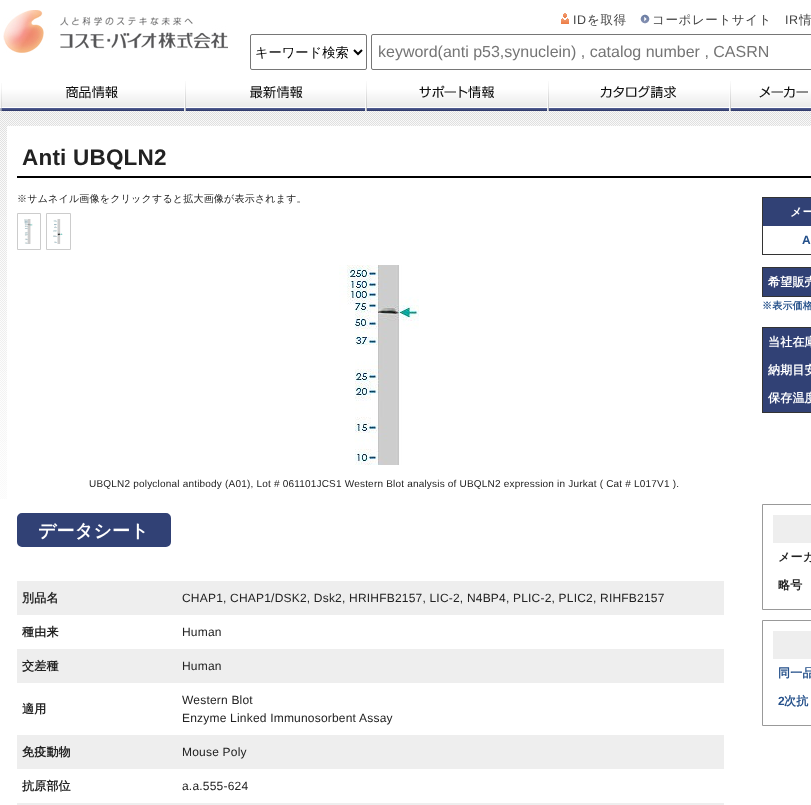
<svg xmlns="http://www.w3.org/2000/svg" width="811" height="805">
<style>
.a{font:12.5px Liberation Sans;letter-spacing:0.6px;fill:#444}
.b{font:500 12.5px WenQuanYi Zen Hei;letter-spacing:0.6px;fill:#444}
.c{font:500 13.25px WenQuanYi Zen Hei;fill:#000}
.d{font:16px Liberation Sans;fill:#757575}
.e{font:bold 22.5px Liberation Sans;letter-spacing:0.2px;fill:#222}
.f{font:500 10px WenQuanYi Zen Hei;letter-spacing:0.2px;fill:#222}
.g{font:10px Liberation Sans;letter-spacing:0.2px;fill:#222}
.h{font:bold 18px WenQuanYi Zen Hei;letter-spacing:0.2px;fill:#fff}
.i{font:bold 12px WenQuanYi Zen Hei;letter-spacing:0.2px;fill:#222}
.j{font:12px Liberation Sans;letter-spacing:0.2px;fill:#222}
.k{font:bold 12px WenQuanYi Zen Hei;letter-spacing:0.2px;fill:#fff}
.l{font:bold 12px Liberation Sans;letter-spacing:0.2px;fill:#24508a}
.m{font:bold 10px WenQuanYi Zen Hei;letter-spacing:0.2px;fill:#24508a}
.n{font:bold 12px WenQuanYi Zen Hei;letter-spacing:0.2px;fill:#24508a}
</style>
<rect width="100%" height="100%" fill="#fff"/>
<image href="1.png" x="0" y="111" width="811" height="388"/>
<image href="2.png" x="3" y="10" width="225" height="43"/>
<image href="3.png" x="561" y="13" width="8" height="11"/>
<image href="4.png" x="640" y="14" width="10" height="10"/>
<image href="5.png" x="0" y="83" width="183" height="28"/>
<image href="6.png" x="183" y="81" width="182" height="30"/>
<image href="7.png" x="365" y="81" width="182" height="30"/>
<image href="8.png" x="547" y="81" width="182" height="30"/>
<image href="9.png" x="729" y="81" width="82" height="30"/>
<rect fill="none" stroke="#767676" x="250.5" y="34.5" width="116" height="35" rx="1.5"/>
<path fill="none" stroke="#000" stroke-width="2" d="M354 50l4 4l4-4"/>
<rect fill="none" stroke="#767676" x="371.5" y="34.5" width="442" height="35" rx="1.5"/>
<path fill="#fff" d="M7 126h804v373H7z"/>
<path fill="#000" d="M17 176h794v2H17z"/>
<path fill="none" stroke="#ccc" d="M17.5 213.5h23v36H17.5z"/>
<image href="10.png" x="24" y="219" width="9" height="25"/>
<path fill="none" stroke="#ccc" d="M46.5 213.5h24v36H46.5z"/>
<image href="11.png" x="53" y="219" width="10" height="25"/>
<image href="12.png" x="339" y="265" width="80" height="200"/>
<rect fill="#314175" stroke="#314175" stroke-width="3" x="18.5" y="514.5" width="151" height="31" rx="3.5"/>
<path fill="#eee" d="M17 581h707v34H17z"/>
<path fill="#eee" d="M17 649h707v34H17z"/>
<path fill="#eee" d="M17 735h707v34H17z"/>
<path fill="#eee" d="M17 803h707v2H17z"/>
<path fill="#333" d="M762 197h49v1H762z"/>
<path fill="#333" d="M762 254h49v1H762z"/>
<path fill="#333" d="M762 197h1v58H762z"/>
<path fill="#314175" d="M763 198h48v28H763z"/>
<path fill="#333" d="M762 267h49v1H762z"/>
<path fill="#333" d="M762 296h49v1H762z"/>
<path fill="#333" d="M762 267h1v30H762z"/>
<path fill="#314175" d="M763 268h48v28H763z"/>
<path fill="#333" d="M762 327h49v1H762z"/>
<path fill="#333" d="M762 412h49v1H762z"/>
<path fill="#333" d="M762 327h1v86H762z"/>
<path fill="#314175" d="M763 328h48v84H763z"/>
<path fill="none" stroke="#999" d="M762.5 504.5h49v105H762.5z"/>
<path fill="#eee" d="M773 515h38v28H773z"/>
<path fill="none" stroke="#999" d="M762.5 620.5h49v105H762.5z"/>
<path fill="#eee" d="M773 631h38v28H773z"/>
<text class="a" x="573" y="24">ID</text>
<text class="b" x="587" y="24">を取得</text>
<text class="b" x="652" y="24">コーポレートサイト</text>
<text class="a" x="785" y="24">IR</text>
<text class="b" x="799" y="24">情</text>
<text class="c" x="255" y="57">キーワード検索</text>
<text class="d" x="378" y="57">keyword(anti p53,synuclein) , catalog number , CASRN</text>
<text class="e" x="22" y="165">Anti UBQLN2</text>
<text class="f" x="17" y="202">※サムネイル画像をクリックすると拡大画像が表示されます。</text>
<text class="g" x="89" y="487">UBQLN2 polyclonal antibody (A01), Lot # 061101JCS1 Western Blot analysis of UBQLN2 expression in Jurkat ( Cat # L017V1 ).</text>
<text class="h" x="38" y="537">データシート</text>
<text class="i" x="22" y="602">別品名</text>
<text class="j" x="182" y="602">CHAP1, CHAP1/DSK2, Dsk2, HRIHFB2157, LIC-2, N4BP4, PLIC-2, PLIC2, RIHFB2157</text>
<text class="i" x="22" y="636">種由来</text>
<text class="j" x="182" y="636">Human</text>
<text class="i" x="22" y="670">交差種</text>
<text class="j" x="182" y="670">Human</text>
<text class="i" x="22" y="713">適用</text>
<text class="j" x="182" y="704">Western Blot</text>
<text class="j" x="182" y="722">Enzyme Linked Immunosorbent Assay</text>
<text class="i" x="22" y="756">免疫動物</text>
<text class="j" x="182" y="756">Mouse Poly</text>
<text class="i" x="22" y="790">抗原部位</text>
<text class="j" x="182" y="790">a.a.555-624</text>
<text class="k" x="790" y="216">メー</text>
<text class="l" x="802" y="244">A</text>
<text class="k" x="768" y="286">希望販売</text>
<text class="m" x="762" y="309">※表示価格</text>
<text class="k" x="768" y="346">当社在庫</text>
<text class="k" x="768" y="374">納期目安</text>
<text class="k" x="768" y="402">保存温度</text>
<text class="i" x="778" y="561">メーカ</text>
<text class="i" x="778" y="589">略号</text>
<text class="n" x="778" y="677">同一品</text>
<text class="l" x="778" y="705">2</text>
<text class="n" x="784" y="705">次抗</text>
</svg>
